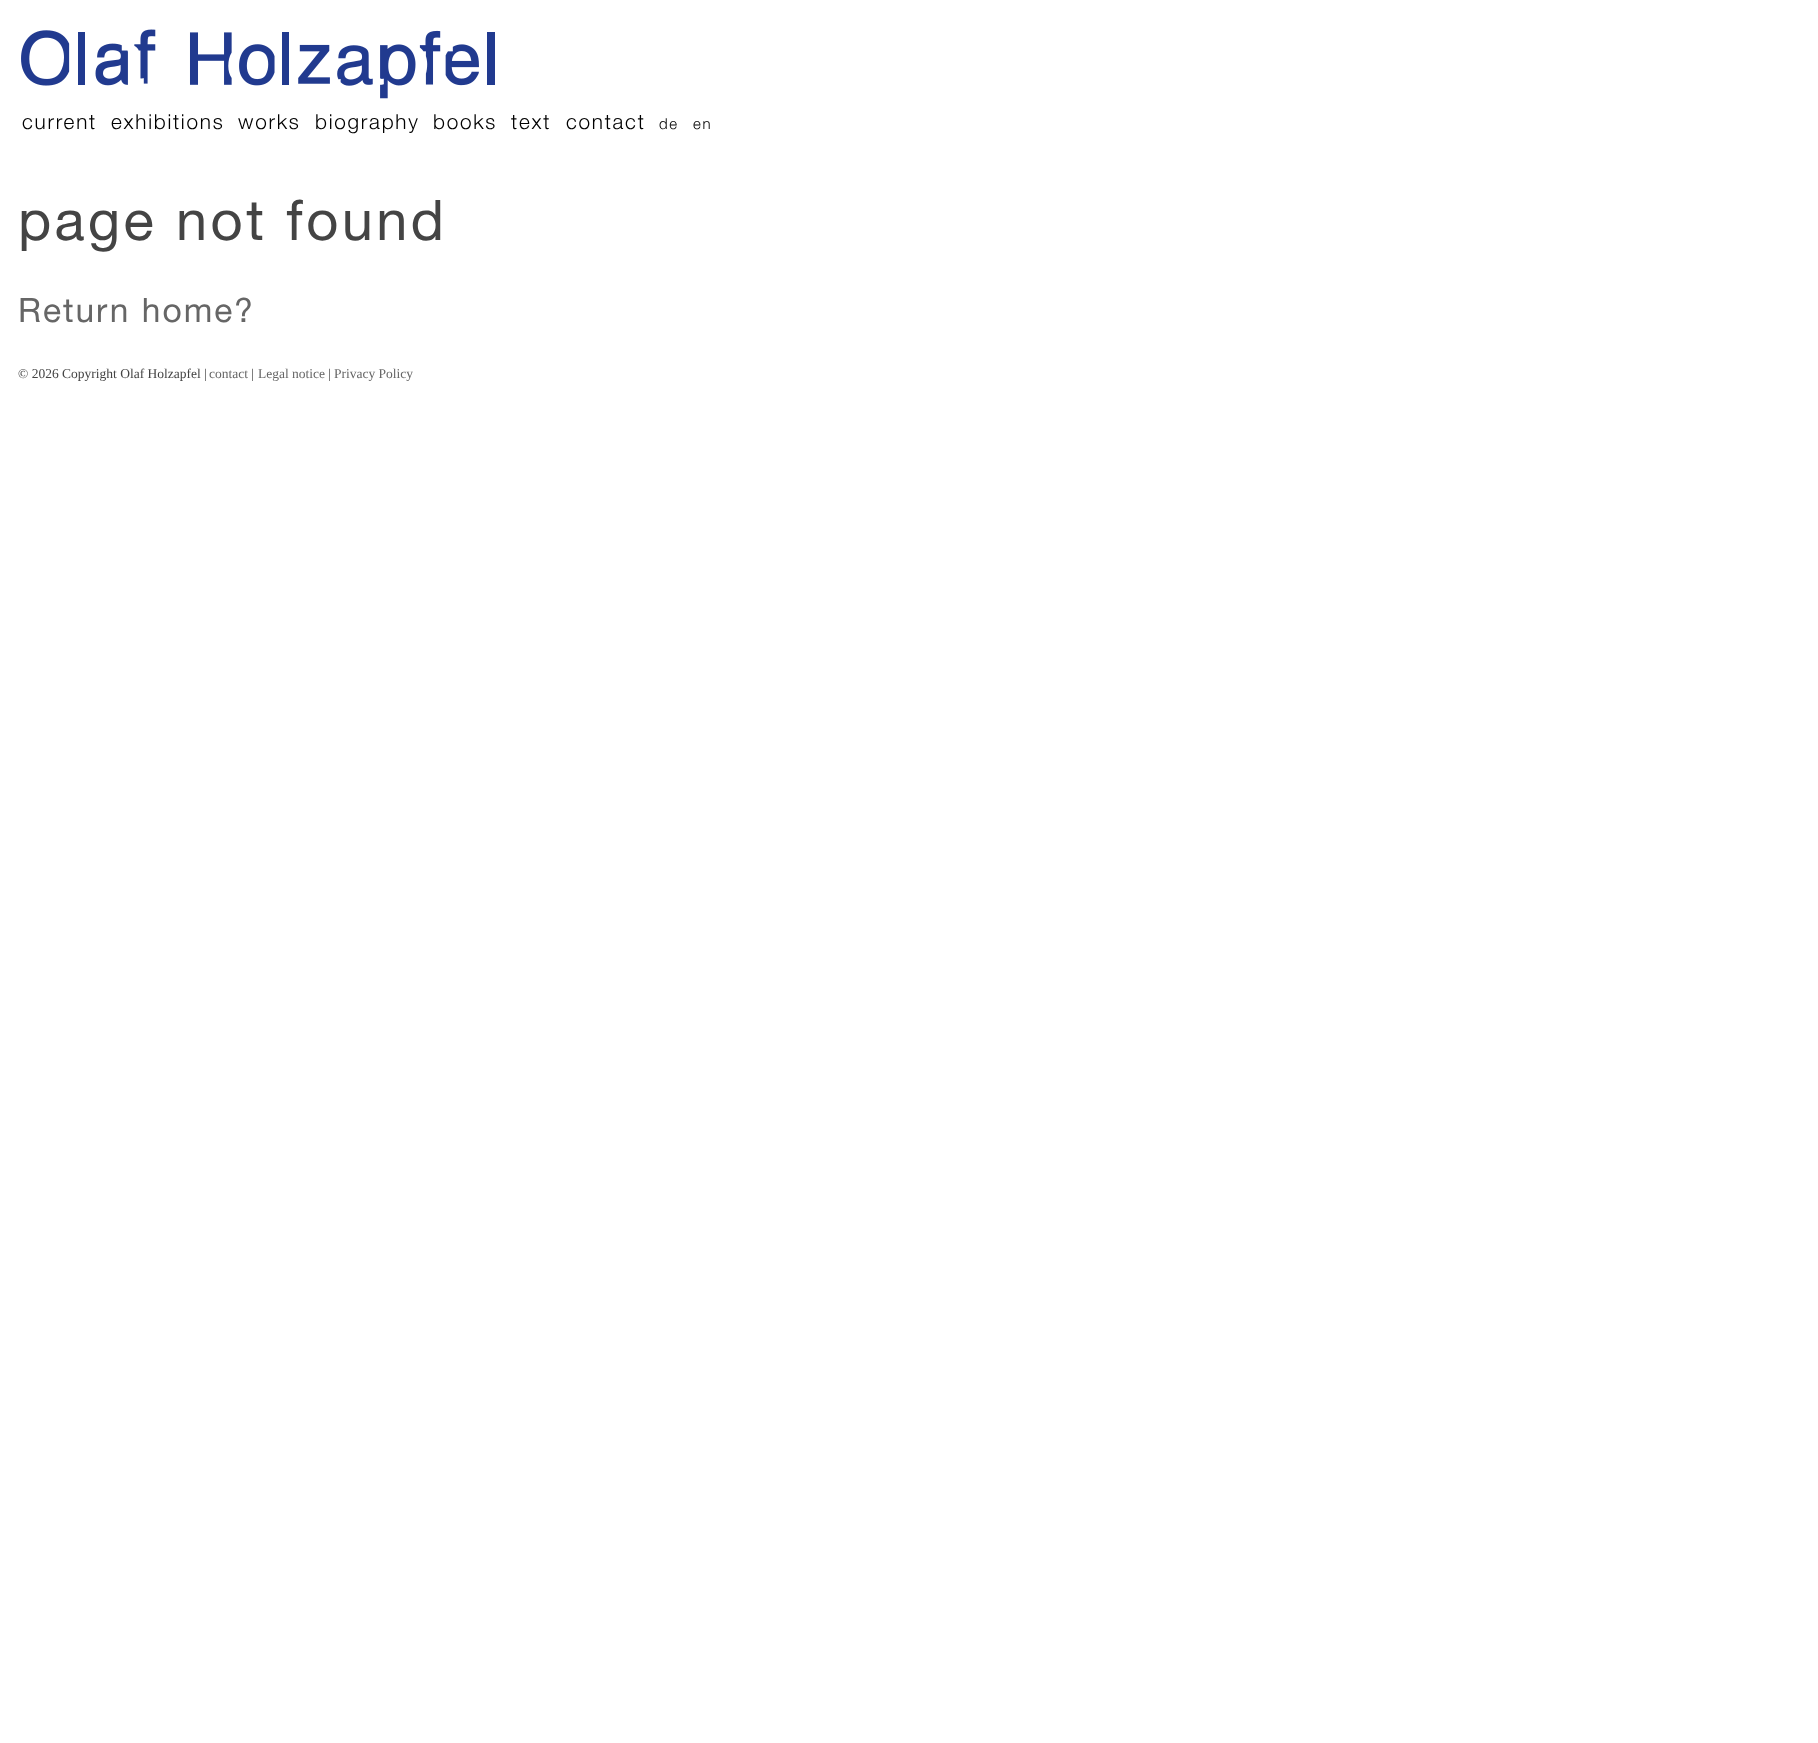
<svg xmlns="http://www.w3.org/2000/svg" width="1818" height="1743">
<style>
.a{font:300 20.75px Helvetica Neue;letter-spacing:1.75px;fill:#000}
.b{font:300 15px Helvetica Neue;letter-spacing:1.75px;fill:#000}
.c{font:56px Helvetica Neue;letter-spacing:3.4px;fill:#444}
.d{font:33.5px Helvetica Neue;letter-spacing:2px;fill:#666}
.e{font:13.5px Liberation Serif;fill:#444}
.f{font:13.5px Liberation Serif;fill:#666}
</style>
<rect width="100%" height="100%" fill="#fff"/>
<image href="1.png" x="21" y="29" width="474" height="70"/>
<text class="a" x="22" y="129">current</text>
<text class="a" x="111" y="129">exhibitions</text>
<text class="a" x="238" y="129">works</text>
<text class="a" x="315" y="129">biography</text>
<text class="a" x="433" y="129">books</text>
<text class="a" x="511" y="129">text</text>
<text class="a" x="566" y="129">contact</text>
<text class="b" x="659" y="129">de</text>
<text class="b" x="693" y="129">en</text>
<text class="c" x="18" y="240">page not found</text>
<text class="d" x="18" y="322">Return home?</text>
<text class="e" x="18" y="378">© 2026 Copyright Olaf Holzapfel |</text>
<text class="f" x="209" y="378">contact</text>
<text class="e" x="251" y="378">|</text>
<text class="f" x="258" y="378">Legal notice</text>
<text class="e" x="328" y="378">|</text>
<text class="f" x="334" y="378">Privacy Policy</text>
</svg>
